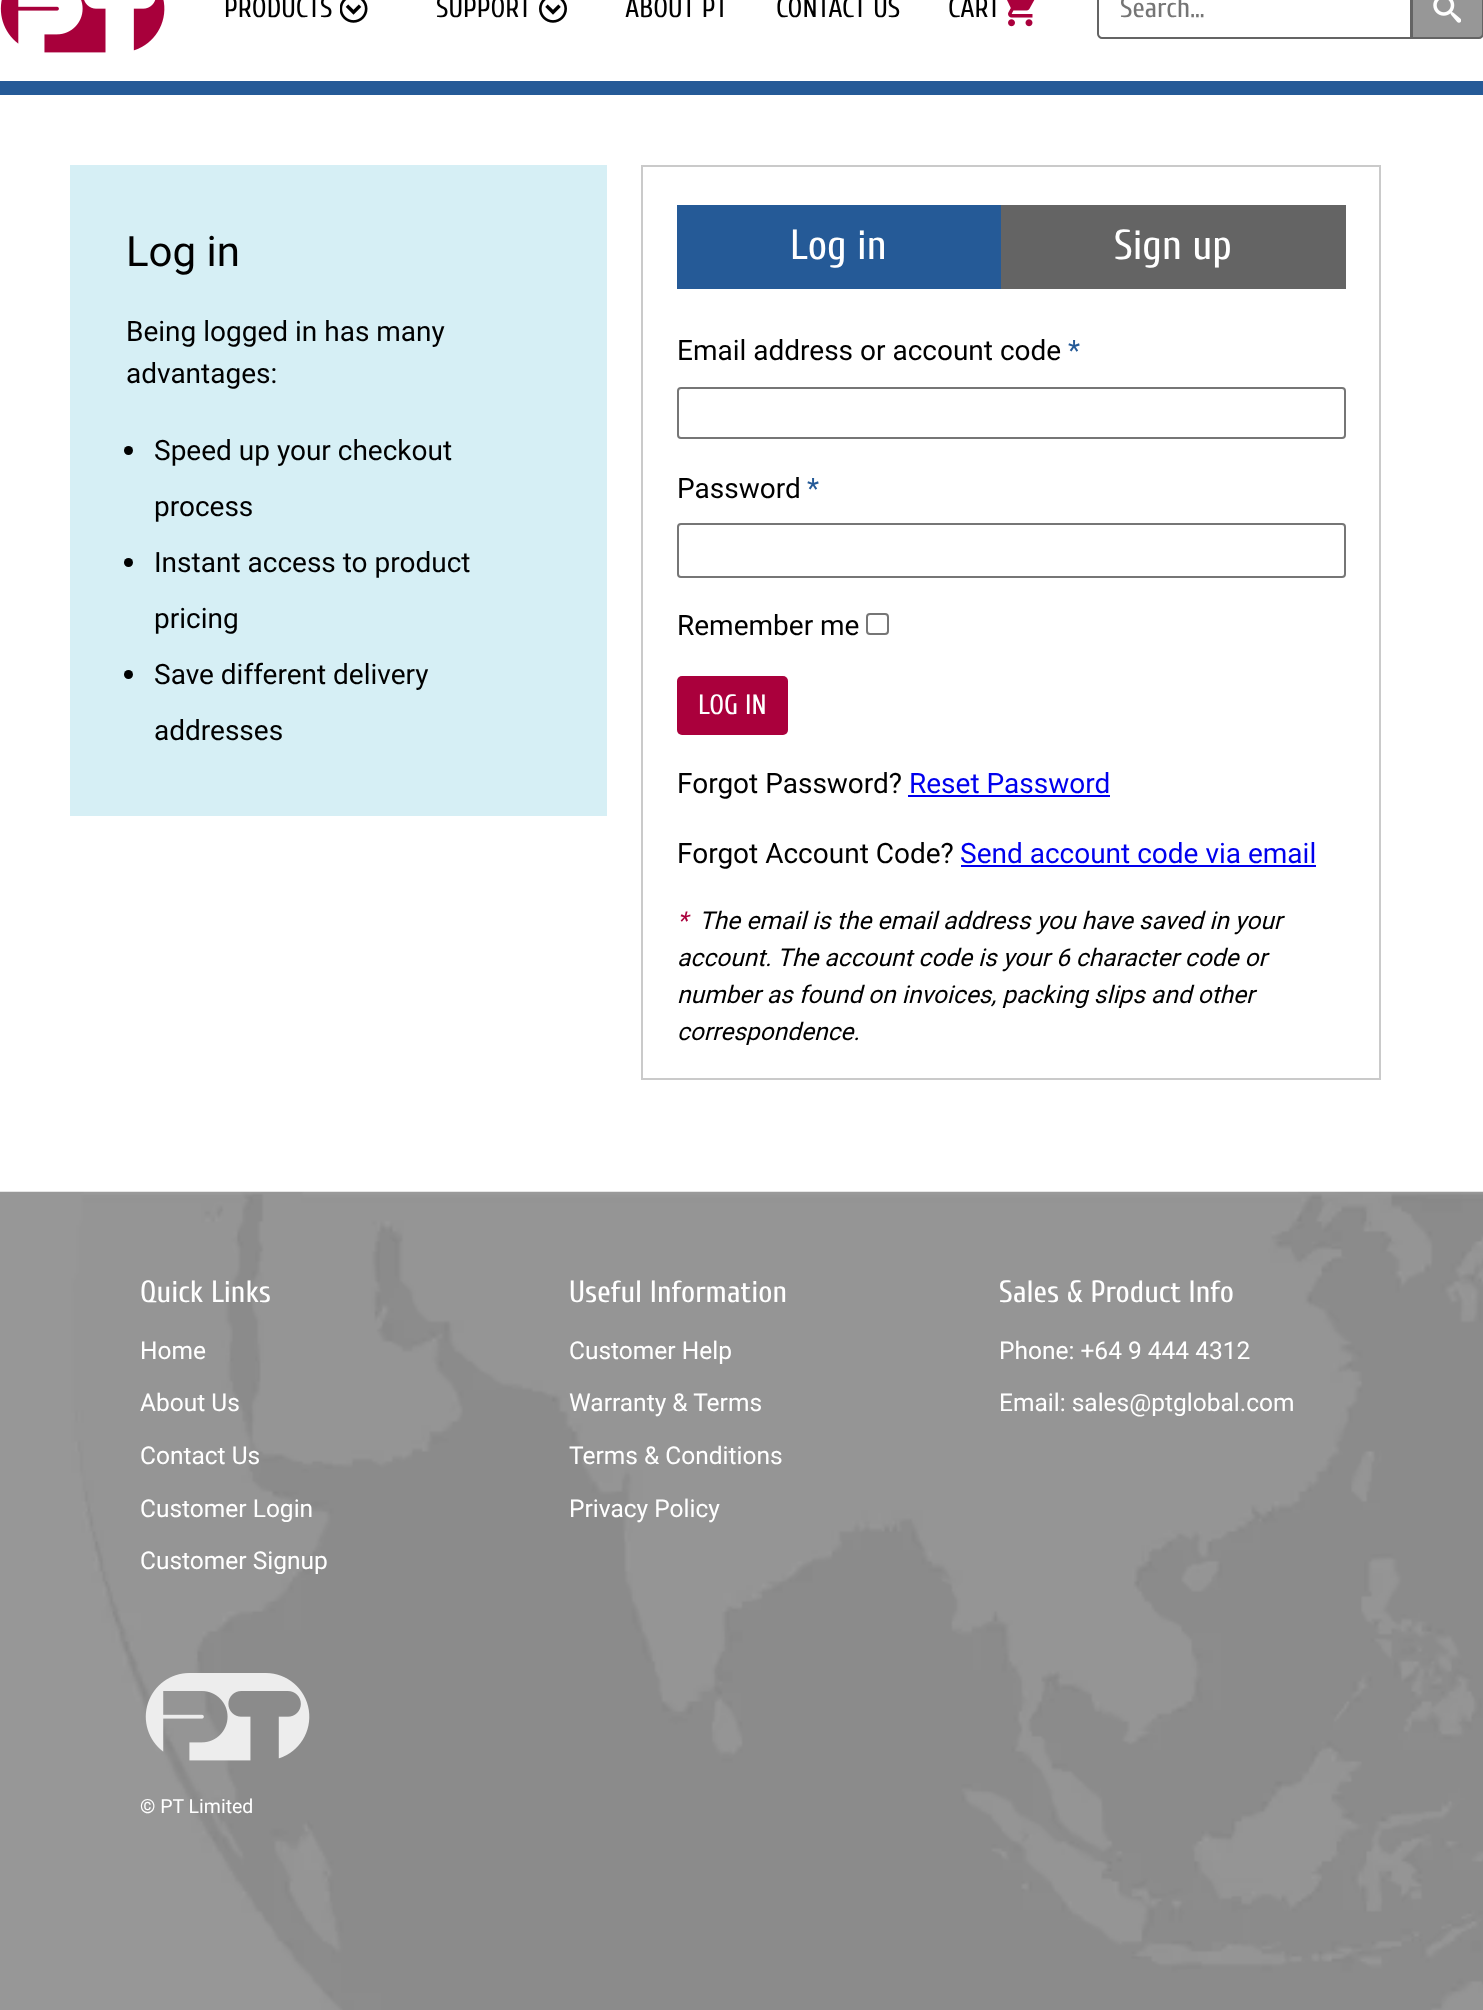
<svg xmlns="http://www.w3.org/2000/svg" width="1483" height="2010">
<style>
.a{font:28px Cuprum;fill:#000}
.b{font:28px Cuprum;fill:#757575}
.c{font:42px Roboto;fill:#000}
.d{font:28px Roboto;fill:#000}
.e{font:42px Cuprum;fill:#fff}
.f{font:28px Roboto;fill:#255a97}
.g{font:28px Cuprum;fill:#fff}
.h{font:28px Roboto;fill:#00e}
.i{font:italic 24.5px Roboto;fill:#aa003c}
.j{font:italic 24.5px Roboto;fill:#000}
.k{font:30.75px Cuprum;fill:#fff}
.l{font:24.5px Roboto;fill:#fff}
.m{font:19.5px Roboto;fill:#fff}
</style>
<rect width="100%" height="100%" fill="#fff"/>
<path fill="#255a97" d="M0 81h1483v14H0z"/>
<image href="1.png" x="0" y="0" width="165" height="53"/>
<image href="2.png" x="340" y="0" width="28" height="23"/>
<image href="3.png" x="539" y="0" width="28" height="23"/>
<image href="4.png" x="1007" y="0" width="28" height="27"/>
<path fill="none" stroke="#646464" stroke-width="2" d="M1102-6h309v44h-309c-2 0-4-2-4-4v-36c0-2 2-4 4-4z"/>
<path fill="#979797" stroke="#646464" stroke-width="2" d="M1412-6h67c2 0 4 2 4 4v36c0 2-2 4-4 4h-67z"/>
<image href="5.png" x="1433" y="0" width="28" height="23"/>
<path fill="#d6eff5" d="M70 165h537v651H70z"/>
<circle fill="#000" cx="128.5" cy="450.5" r="4.5"/>
<circle fill="#000" cx="128.5" cy="562.5" r="4.5"/>
<circle fill="#000" cx="128.5" cy="674.5" r="4.5"/>
<path fill="none" stroke="#cacaca" stroke-width="2" d="M642 166h738v913H642z"/>
<path fill="#255a97" d="M677 205h324v84H677z"/>
<path fill="#646464" d="M1001 205h345v84H1001z"/>
<rect fill="none" stroke="#767676" stroke-width="2" x="678" y="388" width="667" height="50" rx="3"/>
<rect fill="none" stroke="#767676" stroke-width="2" x="678" y="524" width="667" height="53" rx="3"/>
<rect fill="none" stroke="#767676" stroke-width="2" x="867" y="614" width="21" height="20" rx="3"/>
<rect fill="#aa003c" x="677" y="676" width="111" height="59" rx="5"/>
<path fill="#00e" d="M908 795h202v2H908z"/>
<path fill="#00e" d="M961 865h355v2H961z"/>
<image href="6.png" x="0" y="1191" width="1483" height="819"/>
<image href="7.png" x="145" y="1673" width="165" height="88"/>
<text class="a" x="224" y="17">PRODUCTS</text>
<text class="a" x="436" y="17">SUPPORT</text>
<text class="a" x="625" y="17">ABOUT PT</text>
<text class="a" x="776" y="17">CONTACT US</text>
<text class="a" x="948" y="17">CART</text>
<text class="b" x="1120" y="17">Search…</text>
<text class="c" x="126" y="266">Log in</text>
<text class="d" x="126" y="341">Being logged in has many</text>
<text class="d" x="126" y="383">advantages:</text>
<text class="d" x="154" y="460">Speed up your checkout</text>
<text class="d" x="154" y="516">process</text>
<text class="d" x="154" y="572">Instant access to product</text>
<text class="d" x="154" y="628">pricing</text>
<text class="d" x="154" y="684">Save different delivery</text>
<text class="d" x="154" y="740">addresses</text>
<text class="e" x="790" y="259">Log in</text>
<text class="e" x="1114" y="259">Sign up</text>
<text class="d" x="677" y="360">Email address or account code</text>
<text class="f" x="1068" y="360">*</text>
<text class="d" x="677" y="498">Password</text>
<text class="f" x="807" y="498">*</text>
<text class="d" x="677" y="635">Remember me</text>
<text class="g" x="698" y="714">LOG IN</text>
<text class="d" x="677" y="793">Forgot Password?</text>
<text class="h" x="909" y="793">Reset Password</text>
<text class="d" x="677" y="863">Forgot Account Code?</text>
<text class="h" x="960" y="863">Send account code via email</text>
<text class="i" x="677" y="929">*</text>
<text class="j" x="699" y="929">The email is the email address you have saved in your</text>
<text class="j" x="677" y="966">account. The account code is your 6 character code or</text>
<text class="j" x="677" y="1003">number as found on invoices, packing slips and other</text>
<text class="j" x="677" y="1040">correspondence.</text>
<text class="k" x="140" y="1302">Quick Links</text>
<text class="l" x="140" y="1359">Home</text>
<text class="l" x="140" y="1411">About Us</text>
<text class="l" x="140" y="1464">Contact Us</text>
<text class="l" x="140" y="1517">Customer Login</text>
<text class="l" x="140" y="1569">Customer Signup</text>
<text class="m" x="140" y="1813">© PT Limited</text>
<text class="k" x="569" y="1302">Useful Information</text>
<text class="l" x="569" y="1359">Customer Help</text>
<text class="l" x="569" y="1411">Warranty &amp; Terms</text>
<text class="l" x="569" y="1464">Terms &amp; Conditions</text>
<text class="l" x="569" y="1517">Privacy Policy</text>
<text class="k" x="999" y="1302">Sales &amp; Product Info</text>
<text class="l" x="999" y="1359">Phone: +64 9 444 4312</text>
<text class="l" x="999" y="1411">Email: sales@ptglobal.com</text>
</svg>
